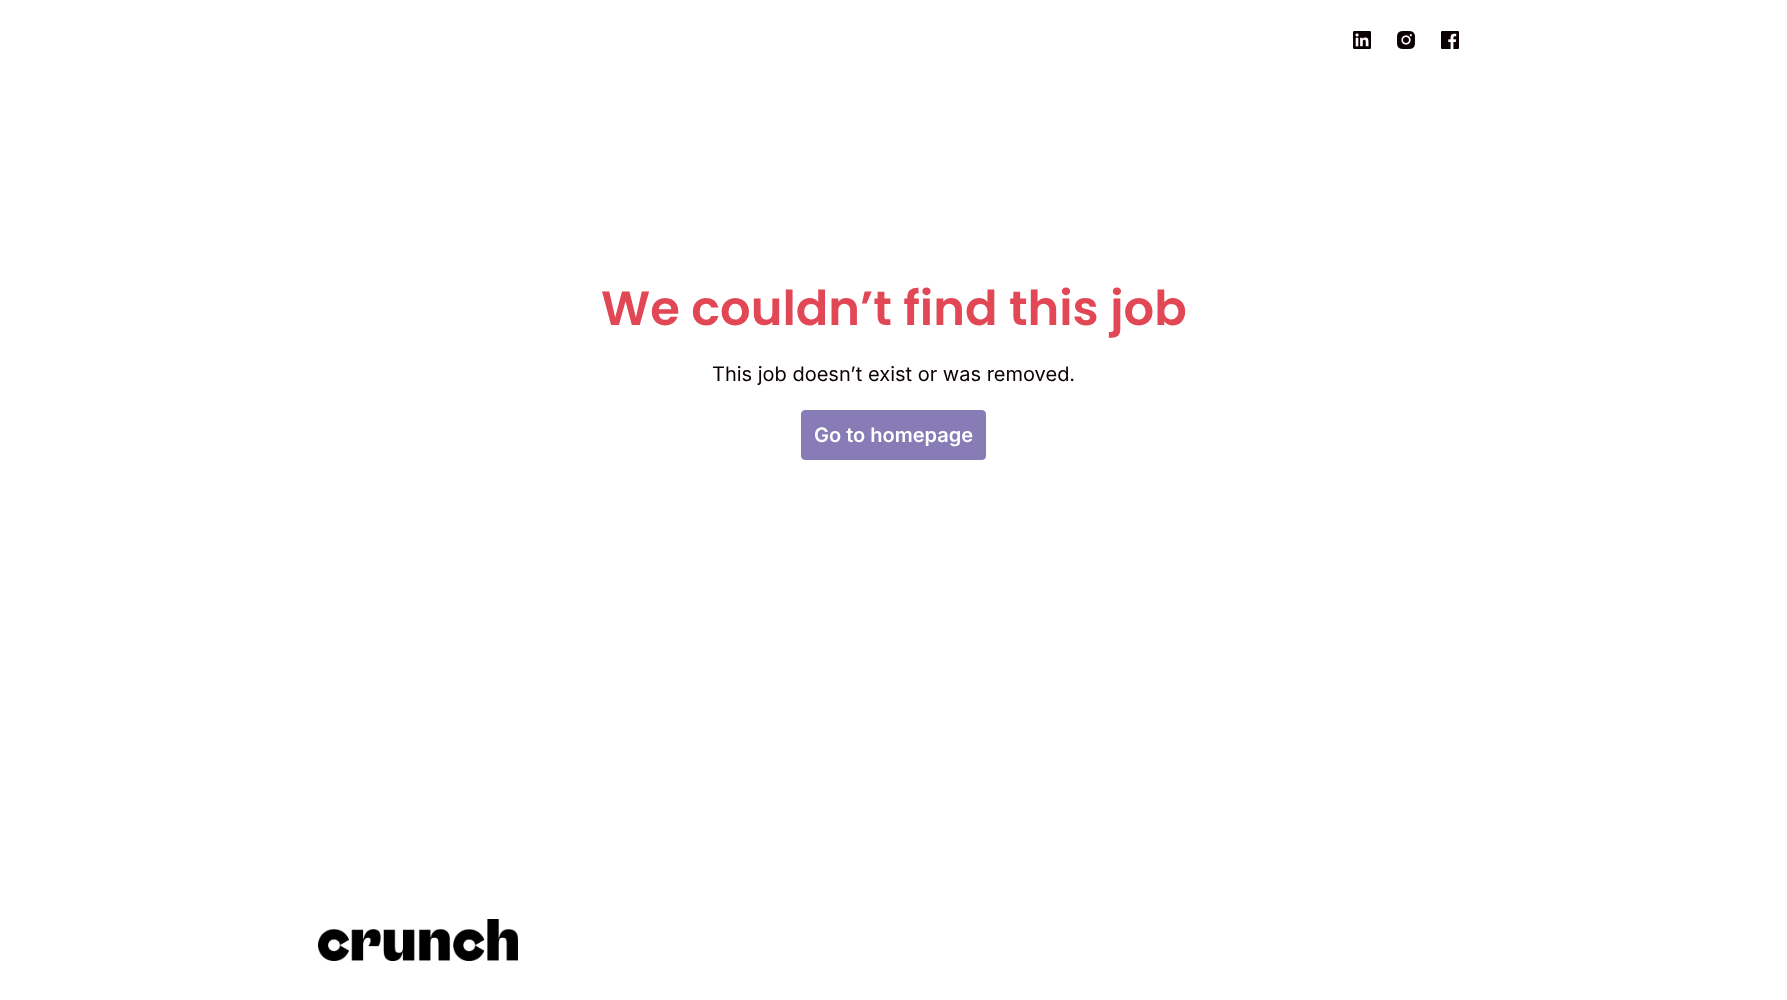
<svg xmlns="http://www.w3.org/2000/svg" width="1787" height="1000">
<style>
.a{font:600 48px Poppins;fill:#e24756}
.b{font:20px Inter;fill:#0b0105}
.c{font:600 20px Inter;fill:#fff}
</style>
<rect width="100%" height="100%" fill="#fff"/>
<image href="1.png" x="1353" y="31" width="18" height="18"/>
<image href="2.png" x="1397" y="31" width="18" height="18"/>
<image href="3.png" x="1441" y="31" width="18" height="18"/>
<rect fill="#877cb6" stroke="#877cb6" x="801.5" y="410.5" width="184" height="49" rx="3.5"/>
<image href="4.png" x="318" y="919" width="200" height="42"/>
<text class="a" x="601" y="325">We couldn’t find this job</text>
<text class="b" x="712" y="381">This job doesn’t exist or was removed.</text>
<text class="c" x="814" y="442">Go to homepage</text>
</svg>
